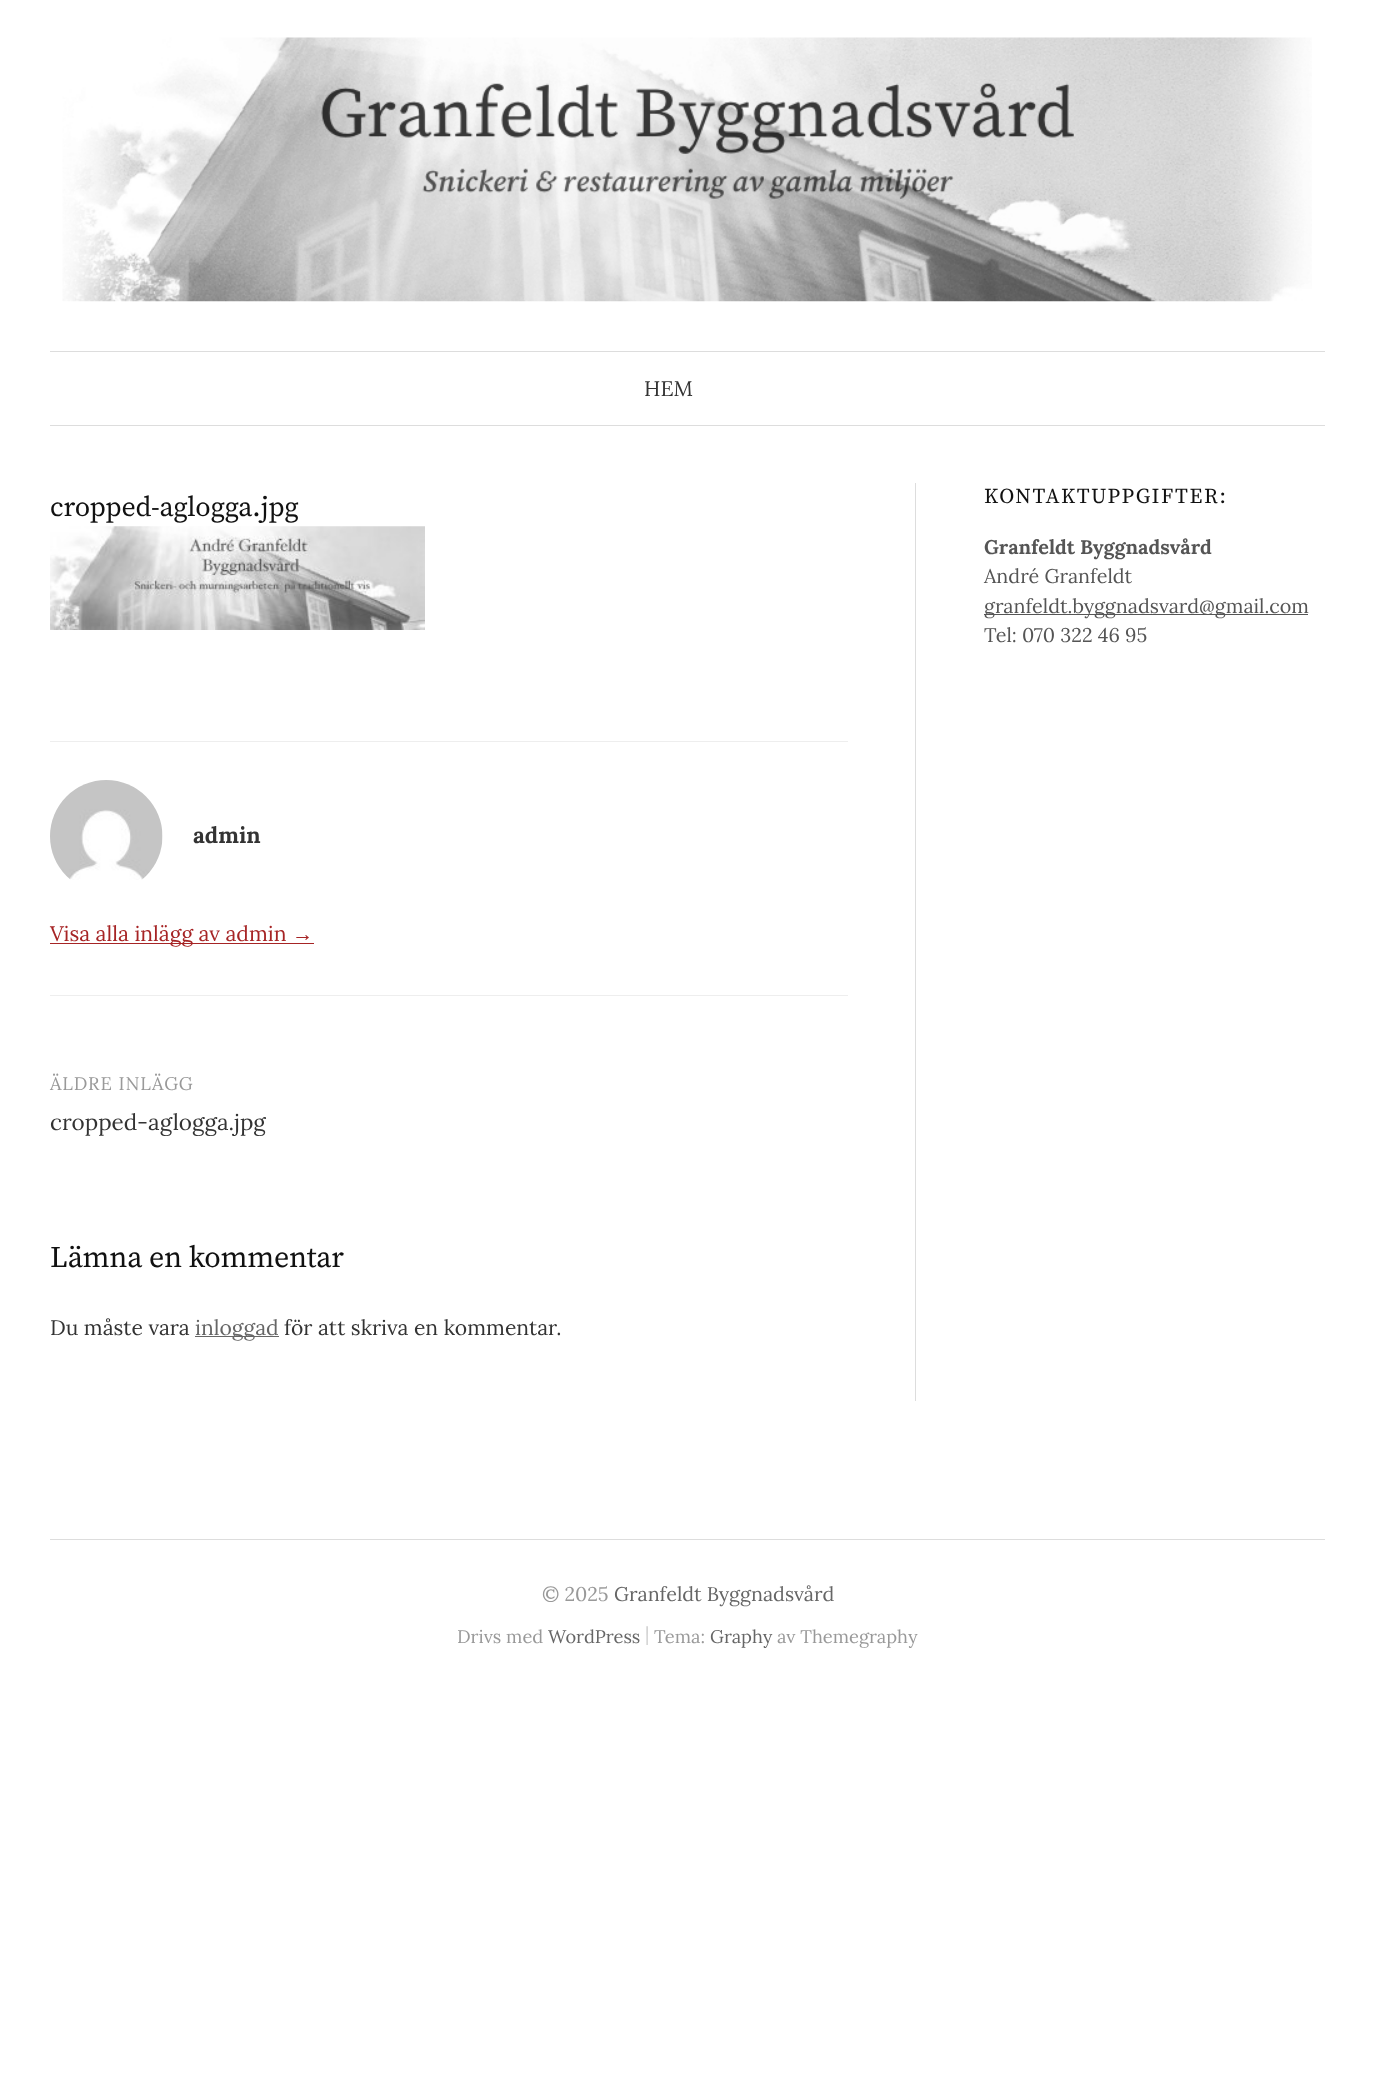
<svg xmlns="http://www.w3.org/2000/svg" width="1375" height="2094">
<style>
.a{font:21.1px Lora;fill:#333}
.b{font:28px Source Serif Pro;letter-spacing:-0.25px;fill:#111}
.c{font:bold 22.5px Lora;fill:#333}
.d{font:21.1px Lora;fill:#a62425}
.e{font:21.1px Liberation Serif;fill:#a62425}
.f{font:18.25px Lora;letter-spacing:0.9px;fill:#999}
.g{font:22.5px Lora;fill:#333}
.h{font:30px Source Serif Pro;letter-spacing:-0.25px;fill:#111}
.i{font:21.1px Lora;fill:#666}
.j{font:21.25px Source Serif Pro;letter-spacing:1.6px;fill:#111}
.k{font:bold 19.75px Lora;fill:#555}
.l{font:19.75px Lora;fill:#555}
.m{font:19.75px Lora;fill:#999}
.n{font:19.75px Lora;fill:#666}
.o{font:18.25px Lora;fill:#999}
.p{font:18.25px Lora;fill:#666}
.q{font:18.25px Lora;fill:#ccc}
</style>
<rect width="100%" height="100%" fill="#fff"/>
<image href="1.png" x="62" y="37" width="1250" height="265"/>
<path fill="#ddd" d="M50 351h1275v1H50z"/>
<path fill="#ddd" d="M50 425h1275v1H50z"/>
<path fill="#ddd" d="M915 483h1v918H915z"/>
<image href="2.png" x="50" y="526" width="375" height="104"/>
<path fill="#eee" d="M50 741h798v1H50z"/>
<path fill="#eee" d="M50 995h798v1H50z"/>
<image href="3.png" x="50" y="780" width="113" height="100"/>
<path fill="#a62425" d="M50 943h264v1H50z"/>
<path fill="#666" d="M195 1336h84v1H195z"/>
<path fill="#555" d="M984 614h324v1H984z"/>
<path fill="#ddd" d="M50 1539h1275v1H50z"/>
<text class="a" x="644" y="396">HEM</text>
<text class="b" x="50" y="516">cropped-aglogga.jpg</text>
<text class="c" x="193" y="843">admin</text>
<text class="d" x="50" y="941">Visa alla inlägg av admin</text>
<text class="e" x="292" y="941">→</text>
<text class="f" x="50" y="1090">ÄLDRE INLÄGG</text>
<text class="g" x="50" y="1130">cropped-aglogga.jpg</text>
<text class="h" x="50" y="1267">Lämna en kommentar</text>
<text class="a" x="50" y="1335">Du måste vara</text>
<text class="i" x="195" y="1335">inloggad</text>
<text class="a" x="284" y="1335">för att skriva en kommentar.</text>
<text class="j" x="984" y="503">KONTAKTUPPGIFTER:</text>
<text class="k" x="984" y="554">Granfeldt Byggnadsvård</text>
<text class="l" x="984" y="583">André Granfeldt</text>
<text class="l" x="984" y="613">granfeldt.byggnadsvard@gmail.com</text>
<text class="l" x="984" y="642">Tel: 070 322 46 95</text>
<text class="m" x="542" y="1601">© 2025</text>
<text class="n" x="614" y="1601">Granfeldt Byggnadsvård</text>
<text class="o" x="457" y="1643">Drivs med</text>
<text class="p" x="548" y="1643">WordPress</text>
<text class="q" x="645" y="1640">|</text>
<text class="o" x="654" y="1643">Tema:</text>
<text class="p" x="710" y="1643">Graphy</text>
<text class="o" x="777" y="1643">av Themegraphy</text>
</svg>
